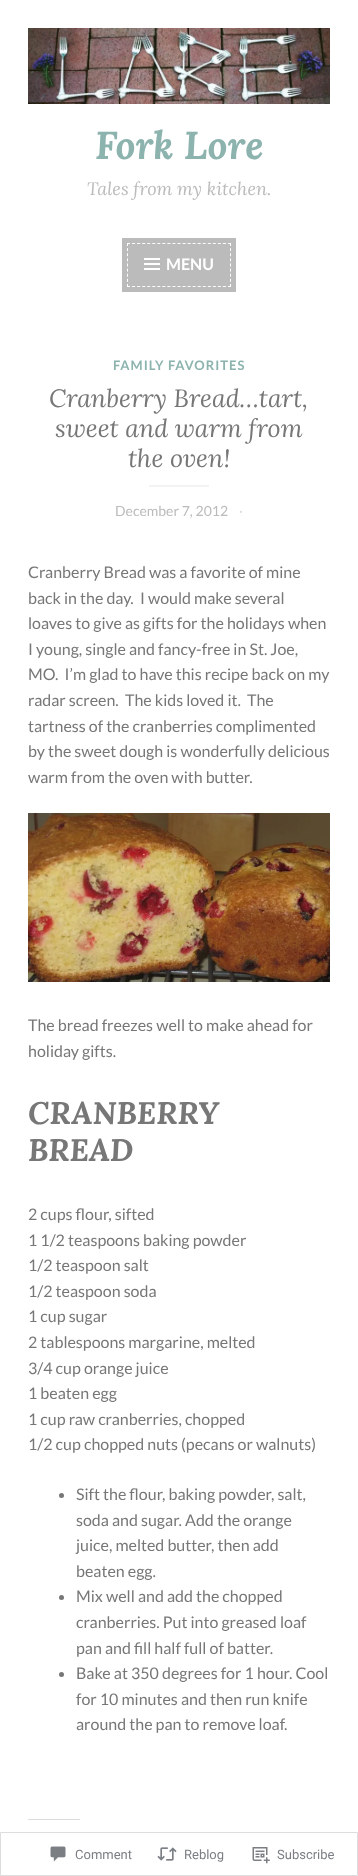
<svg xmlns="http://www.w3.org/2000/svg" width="358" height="1876">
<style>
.a{font:italic bold 39px Lora;fill:#8cb3ae}
.b{font:italic 18px Lora;fill:#bbb}
.c{font:bold 16px Lato;fill:#fff}
.d{font:bold 13px Lato;letter-spacing:1px;fill:#8cb3ae}
.e{font:italic 25px Lora;fill:#777}
.f{font:14px Lato;fill:#bbb}
.g{font:14px Lato;fill:#ddd}
.h{font:16px Lato;fill:#777}
.i{font:italic bold 31.25px Lora;fill:#777}
.j{font:13px Roboto;fill:#7b7f85}
</style>
<rect width="100%" height="100%" fill="#fff"/>
<image href="1.png" x="28" y="28" width="302" height="76"/>
<path fill="#bbb" d="M127 243h104v44H127z"/>
<path fill="none" stroke="#fff" stroke-dasharray="3 2.05" d="M127 243.5h104"/>
<path fill="none" stroke="#fff" stroke-dasharray="3 2.12" d="M230.5 243v44"/>
<path fill="none" stroke="#fff" stroke-dasharray="3 2.05" d="M127 286.5h104"/>
<path fill="none" stroke="#fff" stroke-dasharray="3 2.12" d="M127.5 243v44"/>
<path fill="none" stroke="#bbb" stroke-width="5" d="M124.5 240.5h109v49H124.5z"/>
<image href="2.png" x="144" y="258" width="16" height="12"/>
<path fill="#f3f3f3" d="M149 485h60v2H149z"/>
<image href="3.png" x="28" y="813" width="302" height="169"/>
<circle fill="#777" cx="61.5" cy="1495.5" r="2.5"/>
<circle fill="#777" cx="61.5" cy="1597.5" r="2.5"/>
<circle fill="#777" cx="61.5" cy="1674.5" r="2.5"/>
<path fill="#dcdcde" d="M28 1819h52v1H28z"/>
<path fill="none" stroke="#dddddf" d="M0.5 1832.5h357v43H0.5z"/>
<image href="4.png" x="50" y="1846" width="16" height="16"/>
<image href="5.png" x="157" y="1847" width="20" height="14"/>
<image href="6.png" x="252" y="1847" width="18" height="17"/>
<text class="a" x="95" y="159">Fork Lore</text>
<text class="b" x="87" y="195">Tales from my kitchen.</text>
<text class="c" x="166" y="270">MENU</text>
<text class="d" x="113" y="370">FAMILY FAVORITES</text>
<text class="e" x="49" y="407">Cranberry Bread…tart,</text>
<text class="e" x="55" y="437">sweet and warm from</text>
<text class="e" x="128" y="467">the oven!</text>
<text class="f" x="115" y="516">December 7, 2012</text>
<text class="g" x="239" y="516">·</text>
<text class="h" x="28" y="578">Cranberry Bread was a favorite of mine</text>
<text class="h" xml:space="preserve" x="28" y="604">back in the day.  I would make several</text>
<text class="h" x="28" y="629">loaves to give as gifts for the holidays when</text>
<text class="h" x="28" y="655">I young, single and fancy-free in St. Joe,</text>
<text class="h" xml:space="preserve" x="28" y="680">MO.  I’m glad to have this recipe back on my</text>
<text class="h" xml:space="preserve" x="28" y="706">radar screen.  The kids loved it.  The</text>
<text class="h" x="28" y="732">tartness of the cranberries complimented</text>
<text class="h" x="28" y="757">by the sweet dough is wonderfully delicious</text>
<text class="h" x="28" y="783">warm from the oven with butter.</text>
<text class="h" x="28" y="1031">The bread freezes well to make ahead for</text>
<text class="h" x="28" y="1057">holiday gifts.</text>
<text class="i" x="28" y="1124">CRANBERRY</text>
<text class="i" x="28" y="1161">BREAD</text>
<text class="h" x="28" y="1220">2 cups flour, sifted</text>
<text class="h" x="28" y="1246">1 1/2 teaspoons baking powder</text>
<text class="h" x="28" y="1271">1/2 teaspoon salt</text>
<text class="h" x="28" y="1297">1/2 teaspoon soda</text>
<text class="h" x="28" y="1322">1 cup sugar</text>
<text class="h" x="28" y="1348">2 tablespoons margarine, melted</text>
<text class="h" x="28" y="1374">3/4 cup orange juice</text>
<text class="h" x="28" y="1399">1 beaten egg</text>
<text class="h" x="28" y="1425">1 cup raw cranberries, chopped</text>
<text class="h" x="28" y="1450">1/2 cup chopped nuts (pecans or walnuts)</text>
<text class="h" x="76" y="1500">Sift the flour, baking powder, salt,</text>
<text class="h" x="76" y="1526">soda and sugar. Add the orange</text>
<text class="h" x="76" y="1551">juice, melted butter, then add</text>
<text class="h" x="76" y="1577">beaten egg.</text>
<text class="h" x="76" y="1602">Mix well and add the chopped</text>
<text class="h" x="76" y="1628">cranberries. Put into greased loaf</text>
<text class="h" x="76" y="1654">pan and fill half full of batter.</text>
<text class="h" x="76" y="1679">Bake at 350 degrees for 1 hour. Cool</text>
<text class="h" x="76" y="1705">for 10 minutes and then run knife</text>
<text class="h" x="76" y="1730">around the pan to remove loaf.</text>
<text class="j" x="75" y="1859">Comment</text>
<text class="j" x="184" y="1859">Reblog</text>
<text class="j" x="277" y="1859">Subscribe</text>
</svg>
